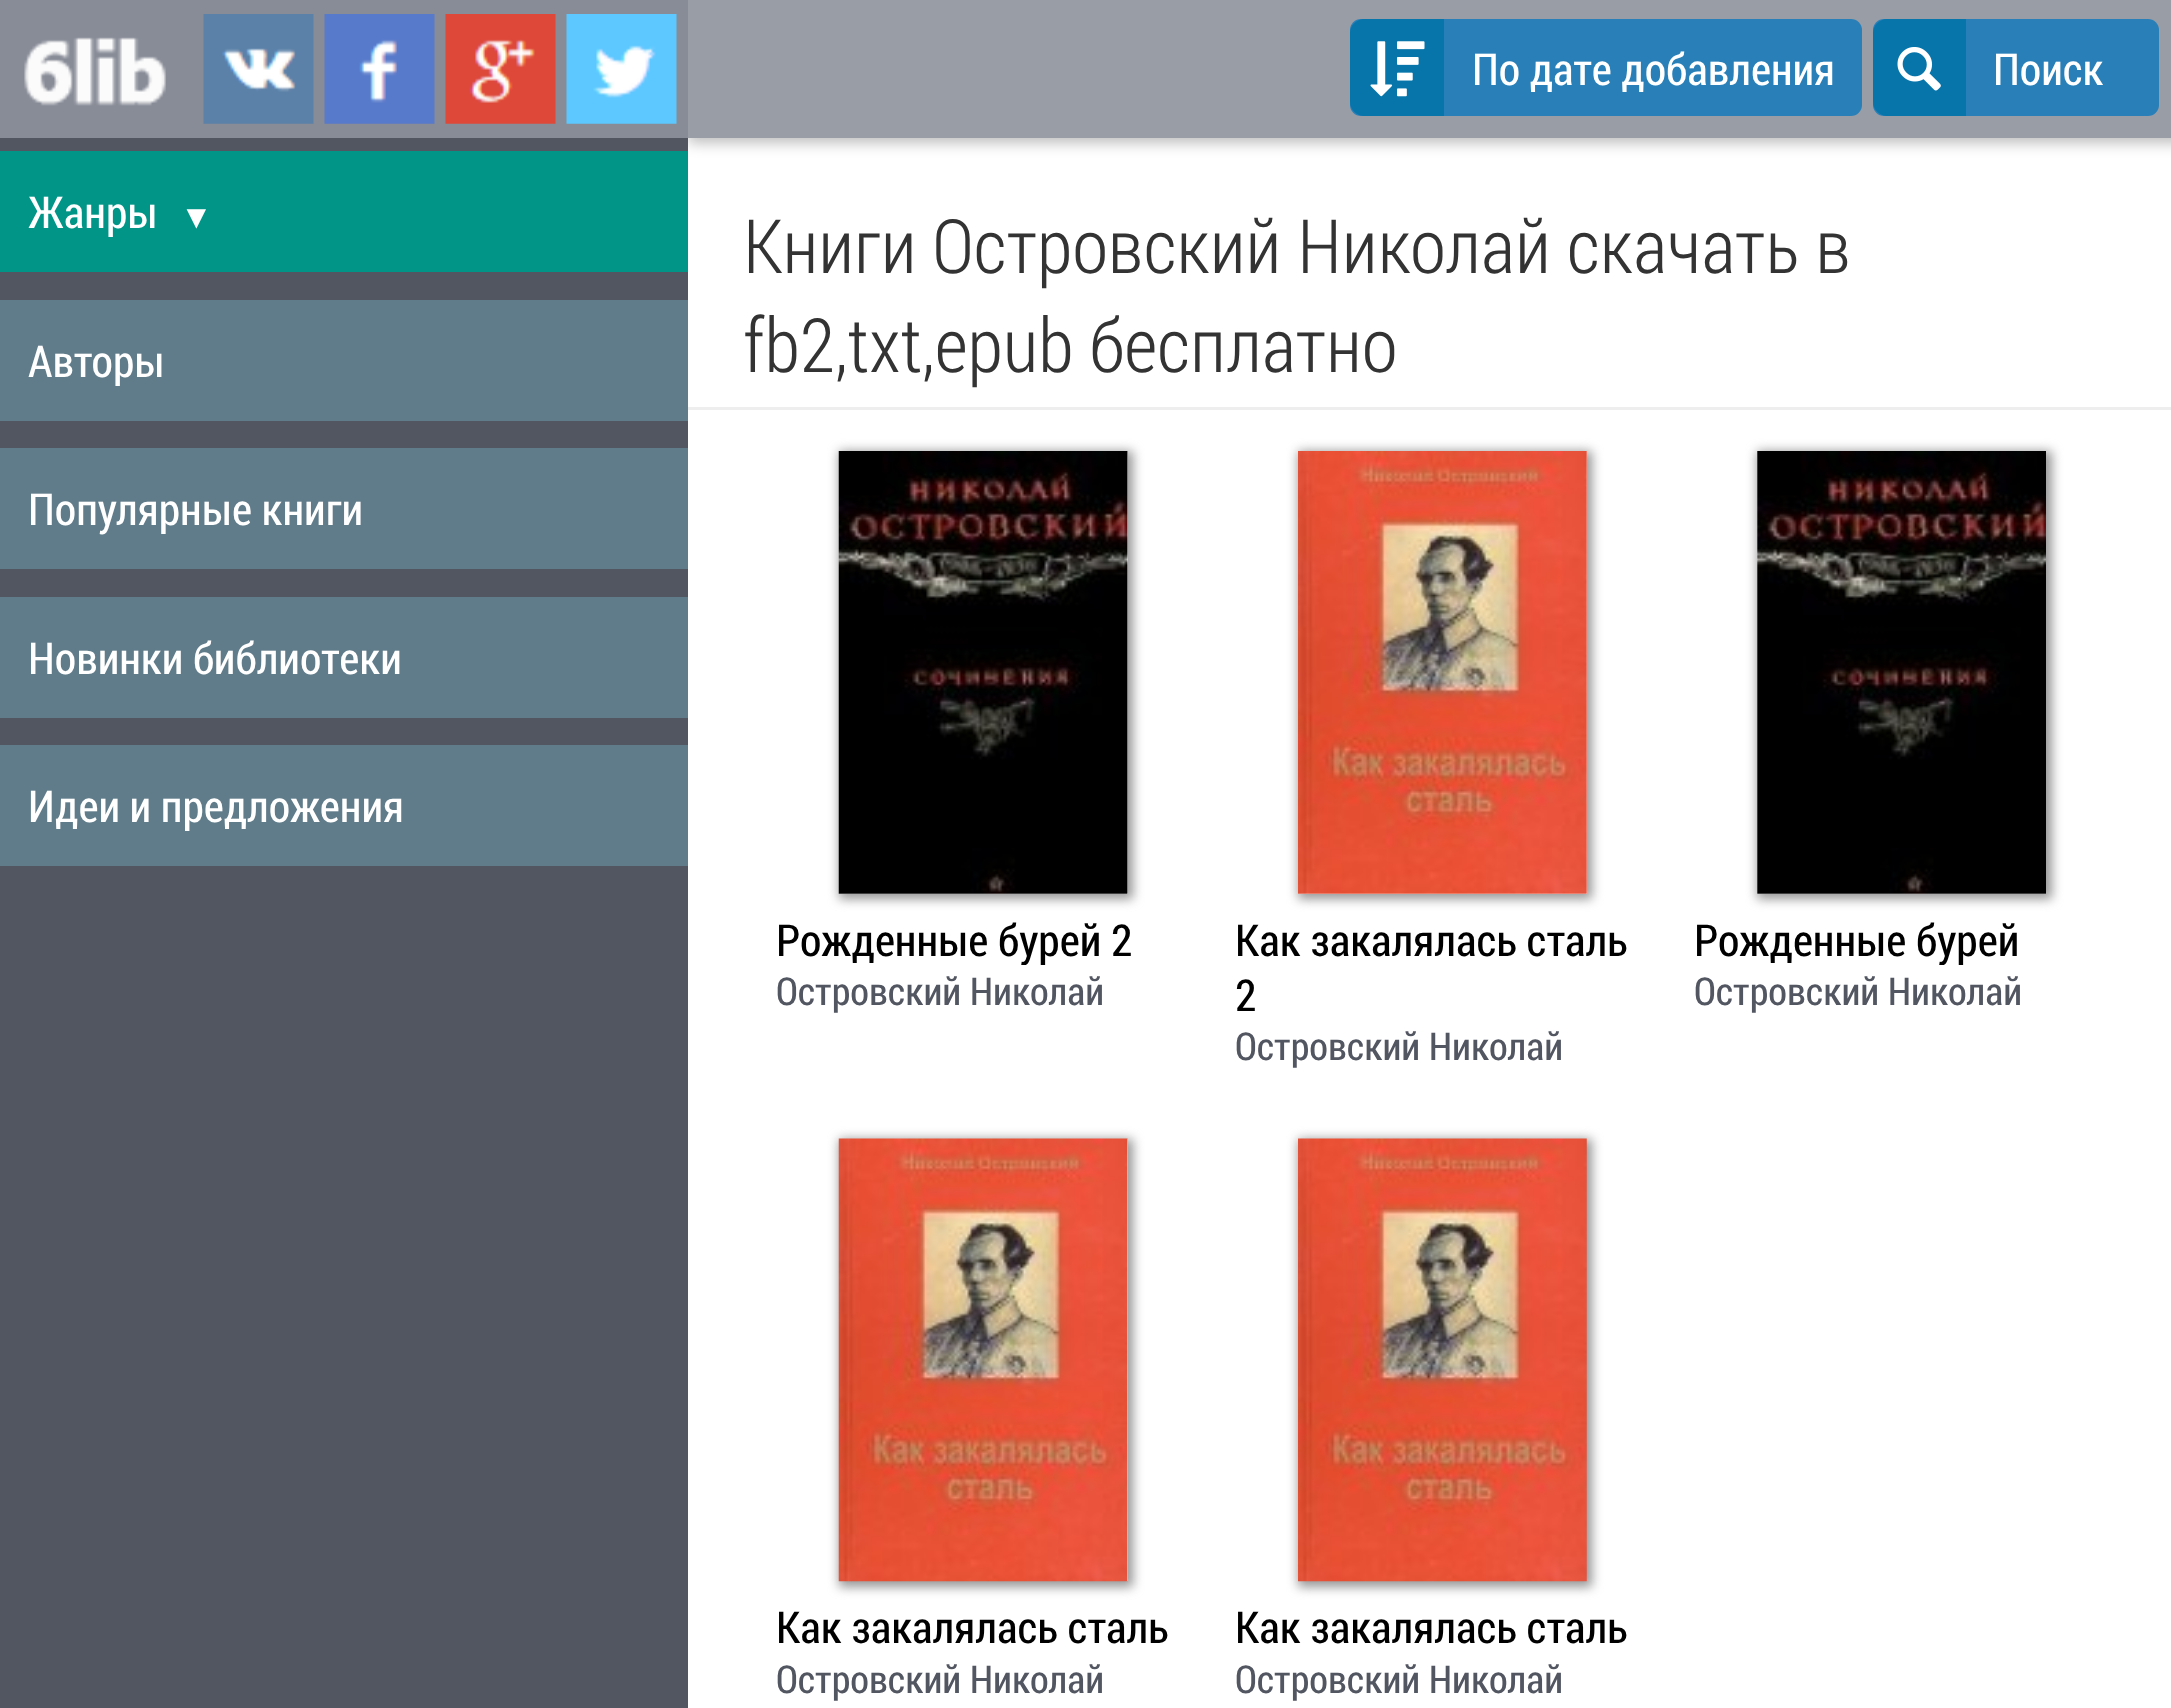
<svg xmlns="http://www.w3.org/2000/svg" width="2171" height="1708">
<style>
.a{font:44px Roboto Condensed;fill:#fff}
.b{font:33px Liberation Serif;fill:#fff}
.c{font:300 74.75px Roboto Condensed;fill:#333}
.d{font:44px Roboto Condensed;fill:#000}
.e{font:38.5px Roboto Condensed;fill:#525661}
</style>
<defs>
<clipPath id="clip1"><path d="M776 910h412v55H776z"/></clipPath>
<clipPath id="clip2"><path d="M1694 910h413v55H1694z"/></clipPath>
</defs>
<rect width="100%" height="100%" fill="#fff"/>
<path fill="#00000042" filter="blur(7px)" d="M688 6h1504v137H688z"/>
<path fill="#525661" d="M0 138h688v1570H0z"/>
<path fill="#888c97" d="M0 0h688v138H0z"/>
<image href="1.png" x="24" y="37" width="142" height="69"/>
<image href="2.png" x="203" y="14" width="111" height="110"/>
<image href="3.png" x="324" y="14" width="111" height="110"/>
<image href="4.png" x="445" y="14" width="111" height="110"/>
<image href="5.png" x="566" y="14" width="111" height="110"/>
<path fill="#019587" d="M0 151h688v121H0z"/>
<path fill="#607c8a" d="M0 300h688v121H0z"/>
<path fill="#607c8a" d="M0 448h688v121H0z"/>
<path fill="#607c8a" d="M0 597h688v121H0z"/>
<path fill="#607c8a" d="M0 745h688v121H0z"/>
<path fill="#999da6" d="M688 0h1483v138H688z"/>
<rect fill="#2980b9" x="1350" y="19" width="512" height="97" rx="11"/>
<path fill="#0775aa" d="M1364 19h80v97h-80c-7.5 0-14-6.5-14-14v-69c0-7.5 6.5-14 14-14z"/>
<image href="6.png" x="1370" y="41" width="55" height="56"/>
<rect fill="#2980b9" x="1873" y="19" width="286" height="97" rx="11"/>
<path fill="#0775aa" d="M1887 19h79v97h-79c-7.5 0-14-6.5-14-14v-69c0-7.5 6.5-14 14-14z"/>
<image href="7.png" x="1897" y="47" width="44" height="44"/>
<path fill="#eee" d="M688 407h1483v3H688z"/>
<path fill="#969696" filter="blur(5.5px)" d="M839 451h294v448H839z"/>
<path fill="#fff" d="M839 451h289v443H839z"/>
<image href="8.png" x="838" y="451" width="290" height="443"/>
<path fill="#969696" filter="blur(5.5px)" d="M1298 451h294v448H1298z"/>
<path fill="#fff" d="M1298 451h289v443H1298z"/>
<image href="9.png" x="1298" y="451" width="289" height="443"/>
<path fill="#969696" filter="blur(5.5px)" d="M1757 451h295v448H1757z"/>
<path fill="#fff" d="M1757 451h289v443H1757z"/>
<image href="10.png" x="1757" y="451" width="289" height="443"/>
<path fill="#969696" filter="blur(5.5px)" d="M839 1139h294v448H839z"/>
<path fill="#fff" d="M1127 1139h1v442H1127z"/>
<image href="11.png" x="838" y="1138" width="290" height="444"/>
<path fill="#969696" filter="blur(5.5px)" d="M1298 1139h294v448H1298z"/>
<image href="12.png" x="1298" y="1138" width="289" height="444"/>
<text class="a" x="28" y="228">Жанры</text>
<text class="b" x="180" y="228">▼</text>
<text class="a" x="28" y="377">Авторы</text>
<text class="a" x="28" y="525">Популярные книги</text>
<text class="a" x="28" y="674">Новинки библиотеки</text>
<text class="a" x="28" y="822">Идеи и предложения</text>
<text class="a" x="1472" y="85">По дате добавления</text>
<text class="a" x="1993" y="85">Поиск</text>
<text class="c" x="743" y="273">Книги Островский Николай скачать в</text>
<text class="c" x="743" y="372">fb2,txt,epub бесплатно</text>
<g clip-path="url(#clip1)">
<text class="d" x="776" y="956">Рожденные бурей 2</text>
</g>
<text class="e" x="776" y="1005">Островский Николай</text>
<text class="d" x="1235" y="956">Как закалялась сталь</text>
<text class="d" x="1235" y="1011">2</text>
<text class="e" x="1235" y="1060">Островский Николай</text>
<g clip-path="url(#clip2)">
<text class="d" x="1694" y="956">Рожденные бурей</text>
</g>
<text class="e" x="1694" y="1005">Островский Николай</text>
<text class="d" x="776" y="1643">Как закалялась сталь</text>
<text class="e" x="776" y="1693">Островский Николай</text>
<text class="d" x="1235" y="1643">Как закалялась сталь</text>
<text class="e" x="1235" y="1693">Островский Николай</text>
</svg>
